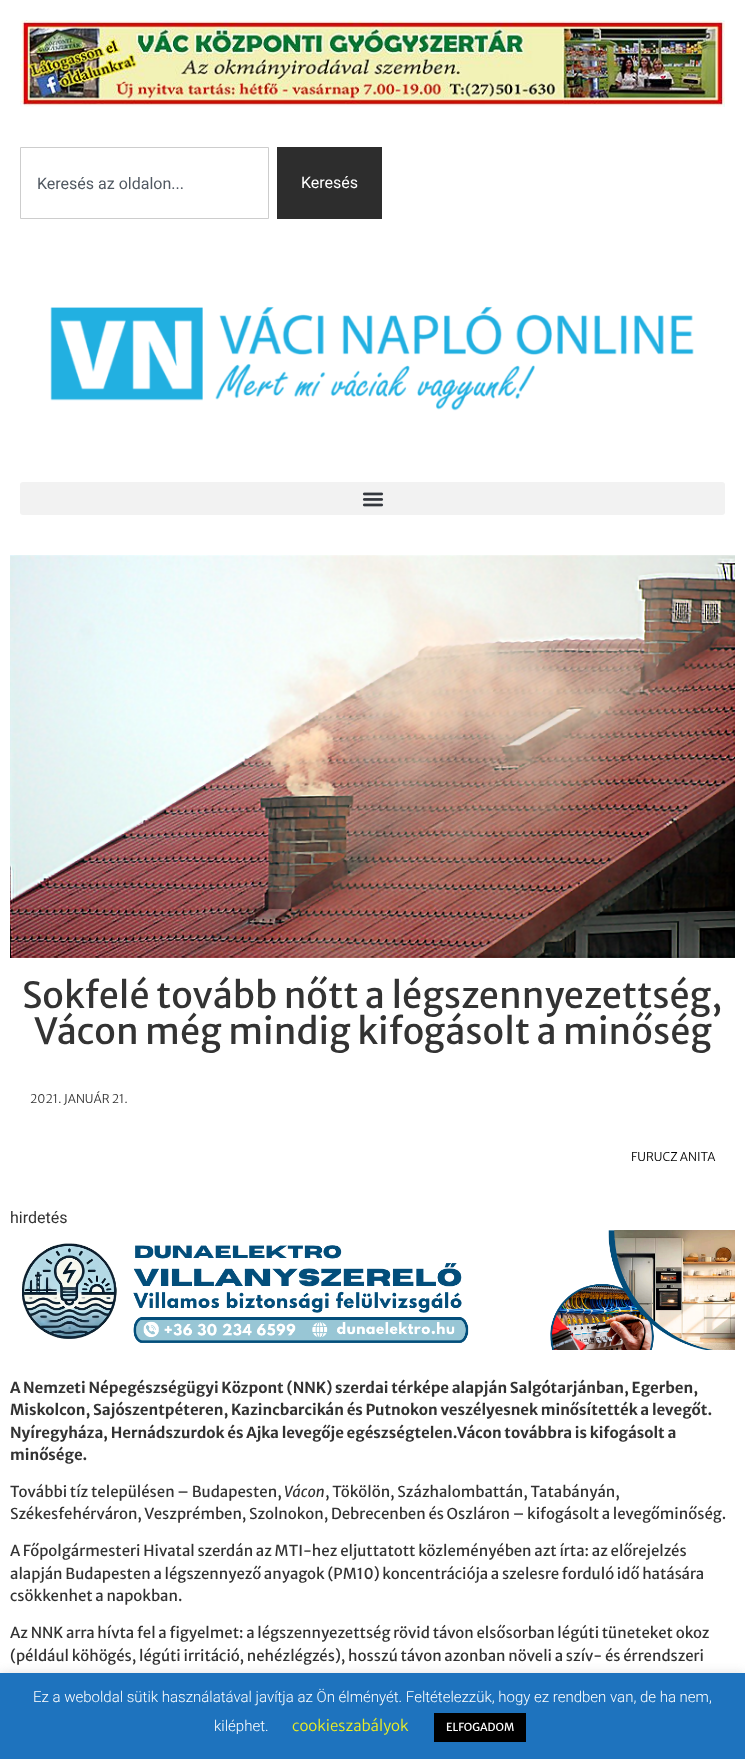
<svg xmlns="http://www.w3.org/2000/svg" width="745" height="1759">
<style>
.a{font:16px Roboto;fill:#515962}
.b{font:16px Roboto;fill:#fff}
.c{font:36px Merriweather Sans;fill:#333}
.d{font:300 12px Merriweather Sans;fill:#333}
.e{font:300 12px Merriweather Sans;fill:#000}
.f{font:16px Roboto;fill:#333}
.g{font:bold 15px Merriweather Sans;fill:#333}
.h{font:15px Merriweather Sans;fill:#333}
.i{font:italic 15px Merriweather Sans;fill:#333}
.j{font:300 15px Roboto;fill:#fff}
.k{font:300 15px Merriweather Sans;fill:#ee2}
.l{font:11px Merriweather Sans;fill:#fff}
</style>
<rect width="100%" height="100%" fill="#fff"/>
<image href="1.png" x="20" y="20" width="705" height="87"/>
<path fill="none" stroke="#cdcdcd" d="M20.5 147.5h248v71H20.5z"/>
<path fill="#2d2d2d" d="M277 147h105v72H277z"/>
<image href="2.png" x="50" y="306" width="644" height="105"/>
<rect fill="#f2f2f2" x="20" y="482" width="705" height="33" rx="3"/>
<image href="3.png" x="362" y="492" width="22" height="15"/>
<image href="4.png" x="10" y="555" width="725" height="403"/>
<image href="5.png" x="22" y="1230" width="713" height="120"/>
<path fill="#acabab4d" filter="blur(5px)" d="M0 1672h745v86H0z"/>
<path fill="#1e73be" d="M0 1673h745v86H0z"/>
<path fill="#000" d="M434 1713h92v29H434z"/>
<text class="a" x="37" y="189">Keresés az oldalon...</text>
<text class="b" x="301" y="188">Keresés</text>
<text class="c" x="22" y="1008">Sokfelé tovább nőtt a légszennyezettség,</text>
<text class="c" x="34" y="1044">Vácon még mindig kifogásolt a minőség</text>
<text class="d" x="30" y="1103">2021. JANUÁR 21.</text>
<text class="e" x="631" y="1161">FURUCZ ANITA</text>
<text class="f" x="10" y="1223">hirdetés</text>
<text class="g" x="10" y="1393">A Nemzeti Népegészségügyi Központ (NNK) szerdai térképe alapján Salgótarjánban, Egerben,</text>
<text class="g" x="10" y="1415">Miskolcon, Sajószentpéteren, Kazincbarcikán és Putnokon veszélyesnek minősítették a levegőt.</text>
<text class="g" x="10" y="1438">Nyíregyháza, Hernádszurdok és Ajka levegője egészségtelen.Vácon továbbra is kifogásolt a</text>
<text class="g" x="10" y="1460">minősége.</text>
<text class="h" x="10" y="1497">További tíz településen – Budapesten,</text>
<text class="i" x="284" y="1497">Vácon</text>
<text class="h" x="325" y="1497">, Tökölön, Százhalombattán, Tatabányán,</text>
<text class="h" x="10" y="1519">Székesfehérváron, Veszprémben, Szolnokon, Debrecenben és Oszláron – kifogásolt a levegőminőség.</text>
<text class="h" x="10" y="1556">A Főpolgármesteri Hivatal szerdán az MTI-hez eljuttatott közleményében azt írta: az előrejelzés</text>
<text class="h" x="10" y="1579">alapján Budapesten a légszennyező anyagok (PM10) koncentrációja a szelesre forduló idő hatására</text>
<text class="h" x="10" y="1601">csökkenhet a napokban.</text>
<text class="h" x="10" y="1638">Az NNK arra hívta fel a figyelmet: a légszennyezettség rövid távon elsősorban légúti tüneteket okoz</text>
<text class="h" x="10" y="1661">(például köhögés, légúti irritáció, nehézlégzés), hosszú távon azonban növeli a szív- és érrendszeri</text>
<text class="j" x="33" y="1702">Ez a weboldal sütik használatával javítja az Ön élményét. Feltételezzük, hogy ez rendben van, de ha nem,</text>
<text class="j" x="214" y="1731">kiléphet.</text>
<text class="k" x="292" y="1731">cookieszabályok</text>
<text class="l" x="446" y="1731">ELFOGADOM</text>
</svg>
